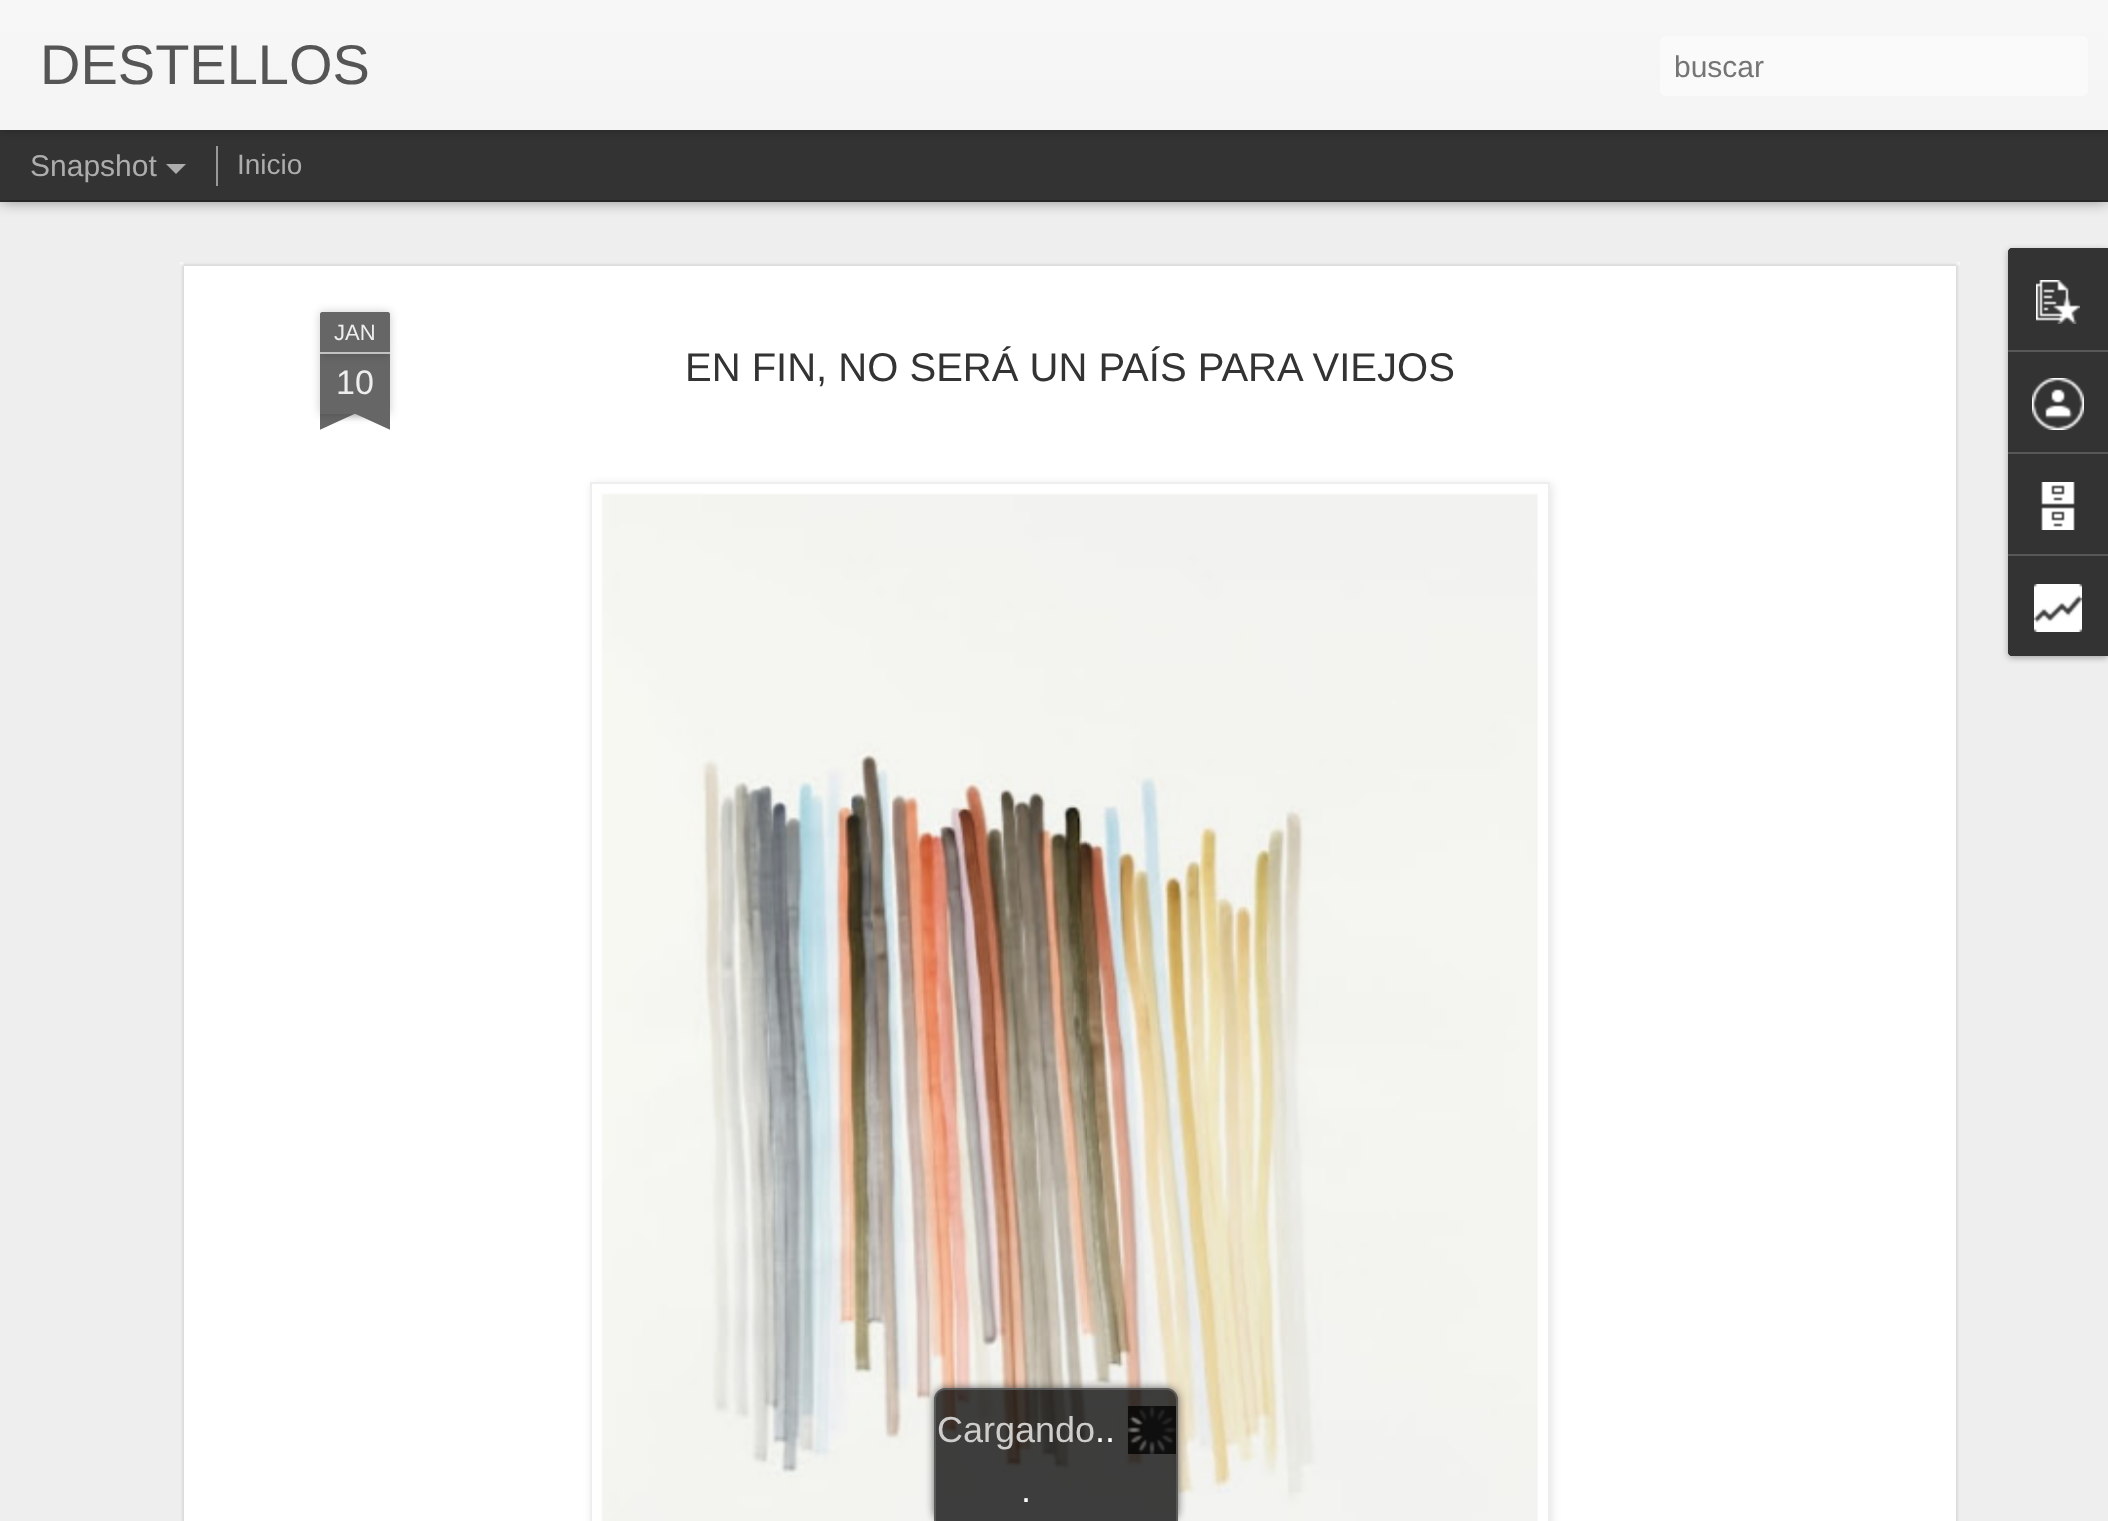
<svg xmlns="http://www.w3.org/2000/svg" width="2108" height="1521">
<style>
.a{font:56px Liberation Sans;fill:#555}
.b{font:30px Liberation Sans;fill:#757575}
.c{font:30px Liberation Sans;fill:#adadad}
.d{font:28px Liberation Sans;fill:#adadad}
.e{font:22px Liberation Sans;fill:#eee}
.f{font:34px Liberation Sans;fill:#eee}
.g{font:40px Liberation Sans;fill:#333}
.h{font:36px Liberation Sans;fill:#cecdcc}
.i{font:36px Liberation Sans;fill:#fcfcfb}
</style>
<defs>
<linearGradient id="g1" gradientUnits="userSpaceOnUse" x1="0" y1="0" x2="0" y2="130"><stop offset="0" stop-color="#f7f7f7"/><stop offset="1" stop-color="#f4f4f4"/></linearGradient>
<clipPath id="clip1"><path d="M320 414h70v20H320z"/></clipPath>
<clipPath id="clip2"><path d="M320 414h70v20H320z"/></clipPath>
<clipPath id="clip3"><path d="M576 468h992v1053h-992zm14 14h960v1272h-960z" clip-rule="evenodd"/></clipPath>
<clipPath id="clip4"><path d="M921 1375h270v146h-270zm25 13h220c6.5 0 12 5.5 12 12v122h-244v-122c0-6.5 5.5-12 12-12z" clip-rule="evenodd"/></clipPath>
</defs>
<rect width="100%" height="100%" fill="#333"/>
<path fill="#eee" d="M0 202h2108v1319H0z"/>
<path fill="#00000080" filter="blur(8px)" d="M0 130h2108v70H0z"/>
<path fill="#333" d="M0 130h2108v70H0z"/>
<path fill="#0000004d" filter="blur(5px)" d="M0 0h2108v130H0z"/>
<path fill="url(#g1)" d="M0 0h2108v130H0z"/>
<rect fill="#fafafa" x="1660" y="36" width="428" height="60" rx="6"/>
<path fill="#adadad" d="M166 164h20l-10 10z"/>
<path fill="#999" d="M216 146h2v40H216z"/>
<path fill="#fff" d="M180 262h1780v1259H180z"/>
<image href="1.png" x="180" y="262" width="1780" height="1259"/>
<path fill="#00000033" filter="blur(5px)" d="M320 354h70v60H320z"/>
<path fill="#666" d="M320 354h70v60H320z"/>
<rect fill="#00000033" filter="blur(5px)" x="320" y="312" width="70" height="42" rx="2"/>
<path fill="#666" d="M322 312h66c1 0 2 1 2 2v40h-70v-40c0-1 1-2 2-2z"/>
<path fill="#c2c2c2" d="M320 352h70v2H320z"/>
<g clip-path="url(#clip1)">
<path fill="#00000033" filter="blur(5px)" d="M302 394h100v20H302z"/>
</g>
<g clip-path="url(#clip2)">
<path fill="#666" d="M302 416l91-42l9 18l-91 42z"/>
</g>
<g clip-path="url(#clip1)">
<path fill="#00000033" filter="blur(5px)" d="M308 394h100v20H308z"/>
</g>
<g clip-path="url(#clip2)">
<path fill="#666" d="M317 374l91 42l-9 18l-91-42z"/>
</g>
<g clip-path="url(#clip3)">
<path fill="#0000001a" filter="blur(5px)" d="M592 484h960v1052H592z"/>
</g>
<path fill="none" stroke="#eee" stroke-width="2" d="M591 483h958v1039H591z"/>
<image href="2.png" x="601" y="493" width="937" height="1028"/>
<rect fill="#0000004d" filter="blur(3px)" x="2008" y="250" width="100" height="408" rx="4"/>
<path fill="#333" d="M2012 248h96v408h-96c-2 0-4-2-4-4v-400c0-2 2-4 4-4z"/>
<path fill="#333" d="M2012 248h96v102h-100v-98c0-2 2-4 4-4z"/>
<image href="3.png" x="2036" y="280" width="44" height="44"/>
<path fill="#585858" d="M2008 350h100v2H2008z"/>
<image href="4.png" x="2032" y="378" width="52" height="52"/>
<path fill="#585858" d="M2008 452h100v2H2008z"/>
<image href="5.png" x="2041" y="482" width="34" height="48"/>
<path fill="#333" d="M2008 554h100v102h-96c-2 0-4-2-4-4z"/>
<path fill="#585858" d="M2008 554h100v2H2008z"/>
<image href="6.png" x="2034" y="584" width="48" height="48"/>
<g clip-path="url(#clip4)">
<rect fill="#333333bf" filter="blur(4px)" x="934" y="1388" width="244" height="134" rx="12"/>
</g>
<path fill="#000000bf" d="M946 1388h220c6.5 0 12 5.5 12 12v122h-244v-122c0-6.5 5.5-12 12-12z"/>
<path fill="#666666bf" fill-rule="evenodd" d="M946 1388h220c7 0 12 5 12 12v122h-244v-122c0-7 5-12 12-12zm0 2h220c6 0 10 4 10 10v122h-240v-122c0-6 4-10 10-10z"/>
<image href="7.png" x="1128" y="1406" width="48" height="48"/>
<text class="a" x="40" y="84">DESTELLOS</text>
<text class="b" x="1674" y="77">buscar</text>
<text class="c" x="30" y="176">Snapshot</text>
<text class="d" x="237" y="174">Inicio</text>
<text class="e" x="334" y="340">JAN</text>
<text class="f" x="336" y="394">10</text>
<text class="g" x="685" y="381">EN FIN, NO SERÁ UN PAÍS PARA VIEJOS</text>
<text class="h" x="937" y="1442">Cargando</text>
<text class="i" x="1095" y="1442">..</text>
<text class="i" x="1021" y="1502">.</text>
</svg>
